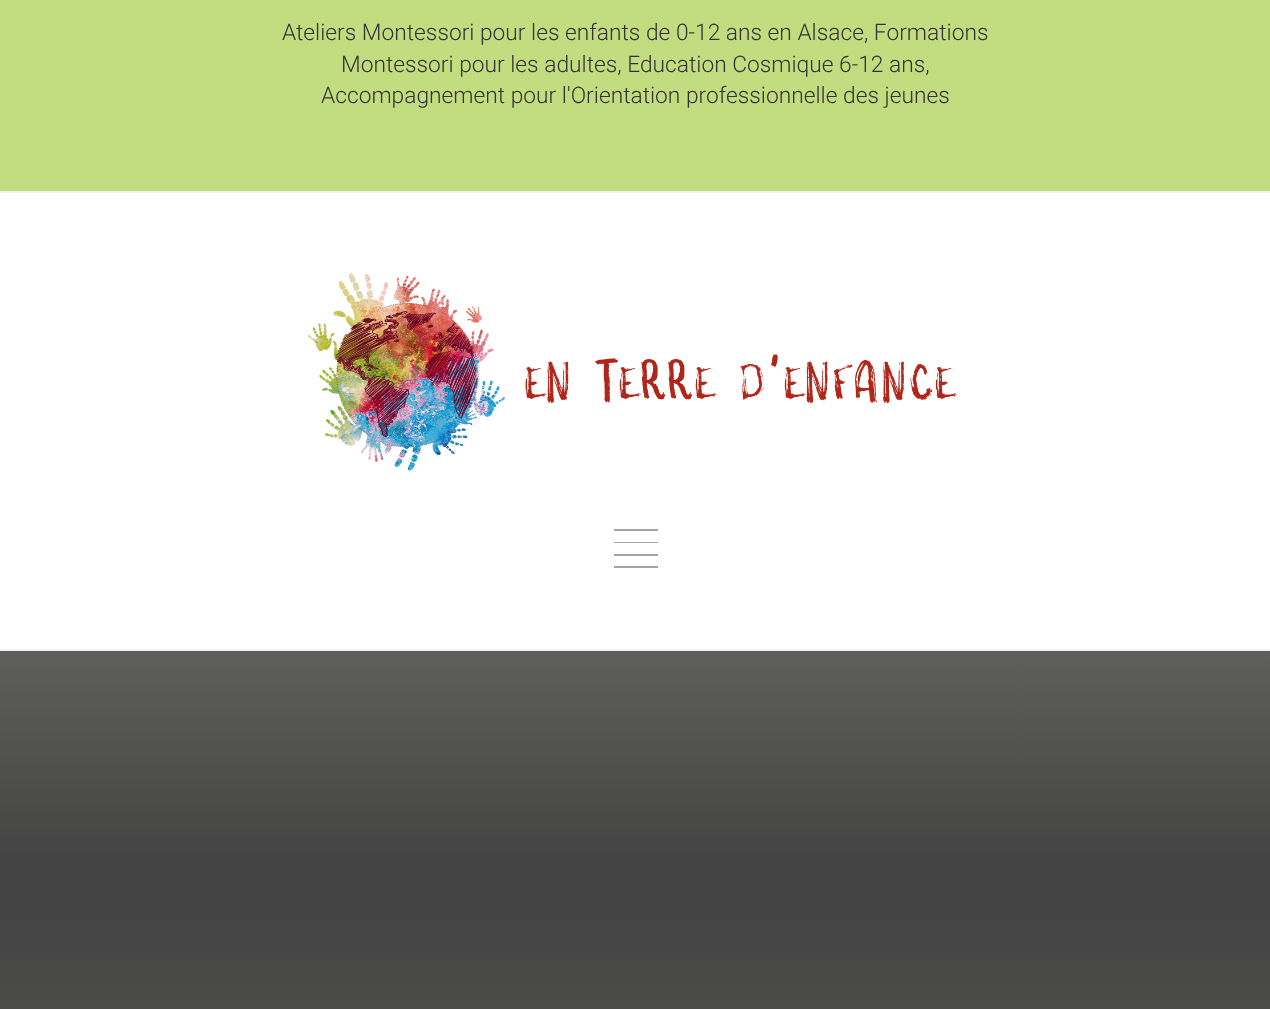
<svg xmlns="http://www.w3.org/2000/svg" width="1270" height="1009">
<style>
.a{font:300 22.75px Roboto;fill:#333}
</style>
<defs>
<linearGradient id="g1" gradientUnits="userSpaceOnUse" x1="635" y1="651" x2="635" y2="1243"><stop offset="0" stop-color="#5e5e5a"/><stop offset="0.35" stop-color="#444"/><stop offset="0.45" stop-color="#444"/><stop offset="1" stop-color="#5e5e5a"/></linearGradient>
</defs>
<rect width="100%" height="100%" fill="#fff"/>
<path fill="#c2dd7f" d="M0 0h1270v191H0z"/>
<path fill="#f1f1f1" d="M0 191h1270v2H0z"/>
<path fill="#f1f1f1" d="M0 649h1270v2H0z"/>
<image href="1.png" x="308" y="273" width="650" height="198"/>
<path fill="#a3a3a3" d="M614 529h44v2H614z"/>
<path fill="#a3a3a3" d="M614 542h44v1H614z"/>
<path fill="#a3a3a3" d="M614 554h44v2H614z"/>
<path fill="#a3a3a3" d="M614 566h44v2H614z"/>
<path fill="url(#g1)" d="M0 651h1270v358H0z"/>
<text class="a" x="282" y="40">Ateliers Montessori pour les enfants de 0-12 ans en Alsace, Formations</text>
<text class="a" x="341" y="72">Montessori pour les adultes, Education Cosmique 6-12 ans,</text>
<text class="a" x="321" y="103">Accompagnement pour l'Orientation professionnelle des jeunes</text>
</svg>
